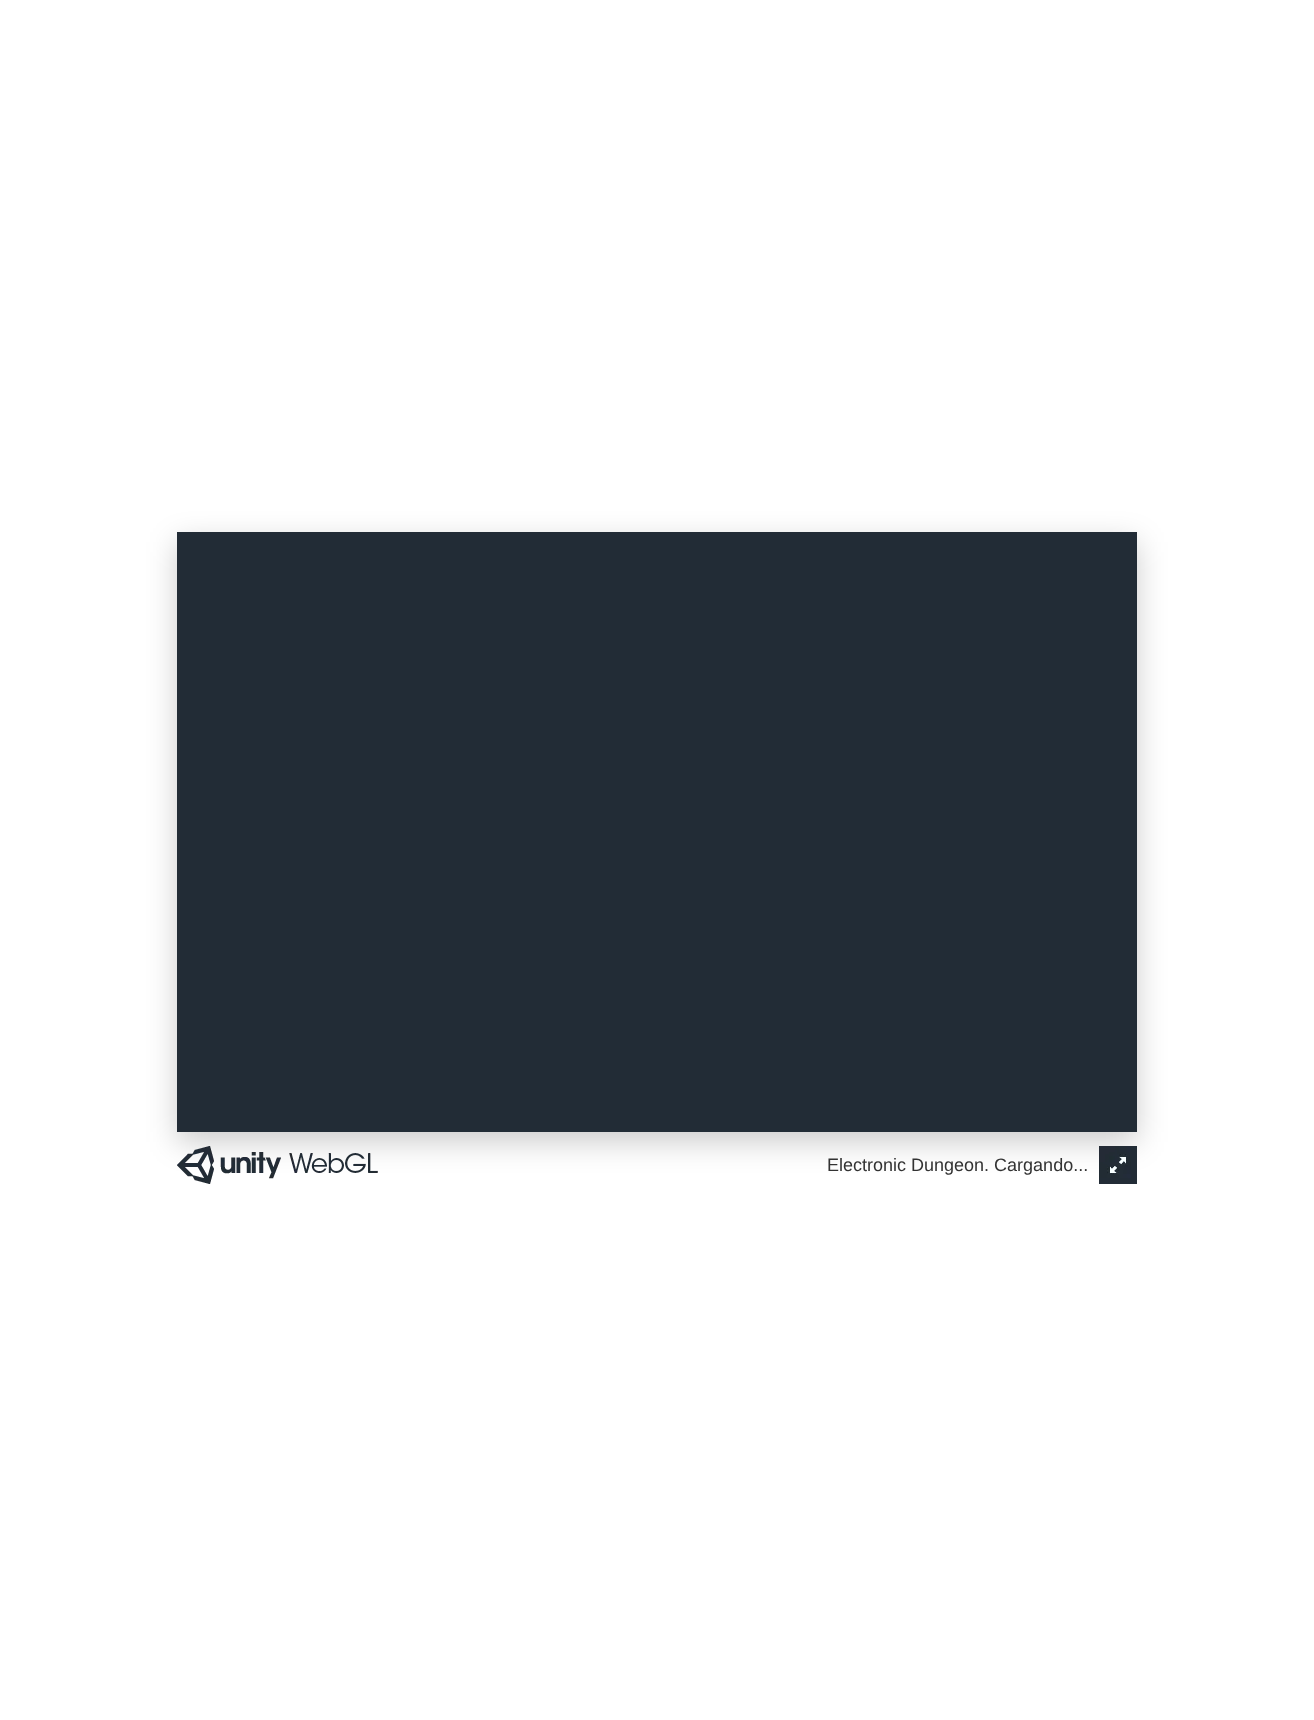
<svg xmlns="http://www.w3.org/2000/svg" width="1314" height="1720">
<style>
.a{font:18px Liberation Sans;fill:#333}
</style>
<defs>
<clipPath id="clip1"><path d="M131 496h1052v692h-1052zm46 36h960v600h-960z" clip-rule="evenodd"/></clipPath>
</defs>
<rect width="100%" height="100%" fill="#fff"/>
<path fill="#222c36" d="M177 532h960v600H177z"/>
<g clip-path="url(#clip1)">
<path fill="#00000033" filter="blur(15px)" d="M177 542h960v600H177z"/>
</g>
<image href="1.png" x="177" y="1146" width="201" height="38"/>
<image href="2.png" x="1099" y="1146" width="38" height="38"/>
<text class="a" x="827" y="1171">Electronic Dungeon. Cargando...</text>
</svg>
